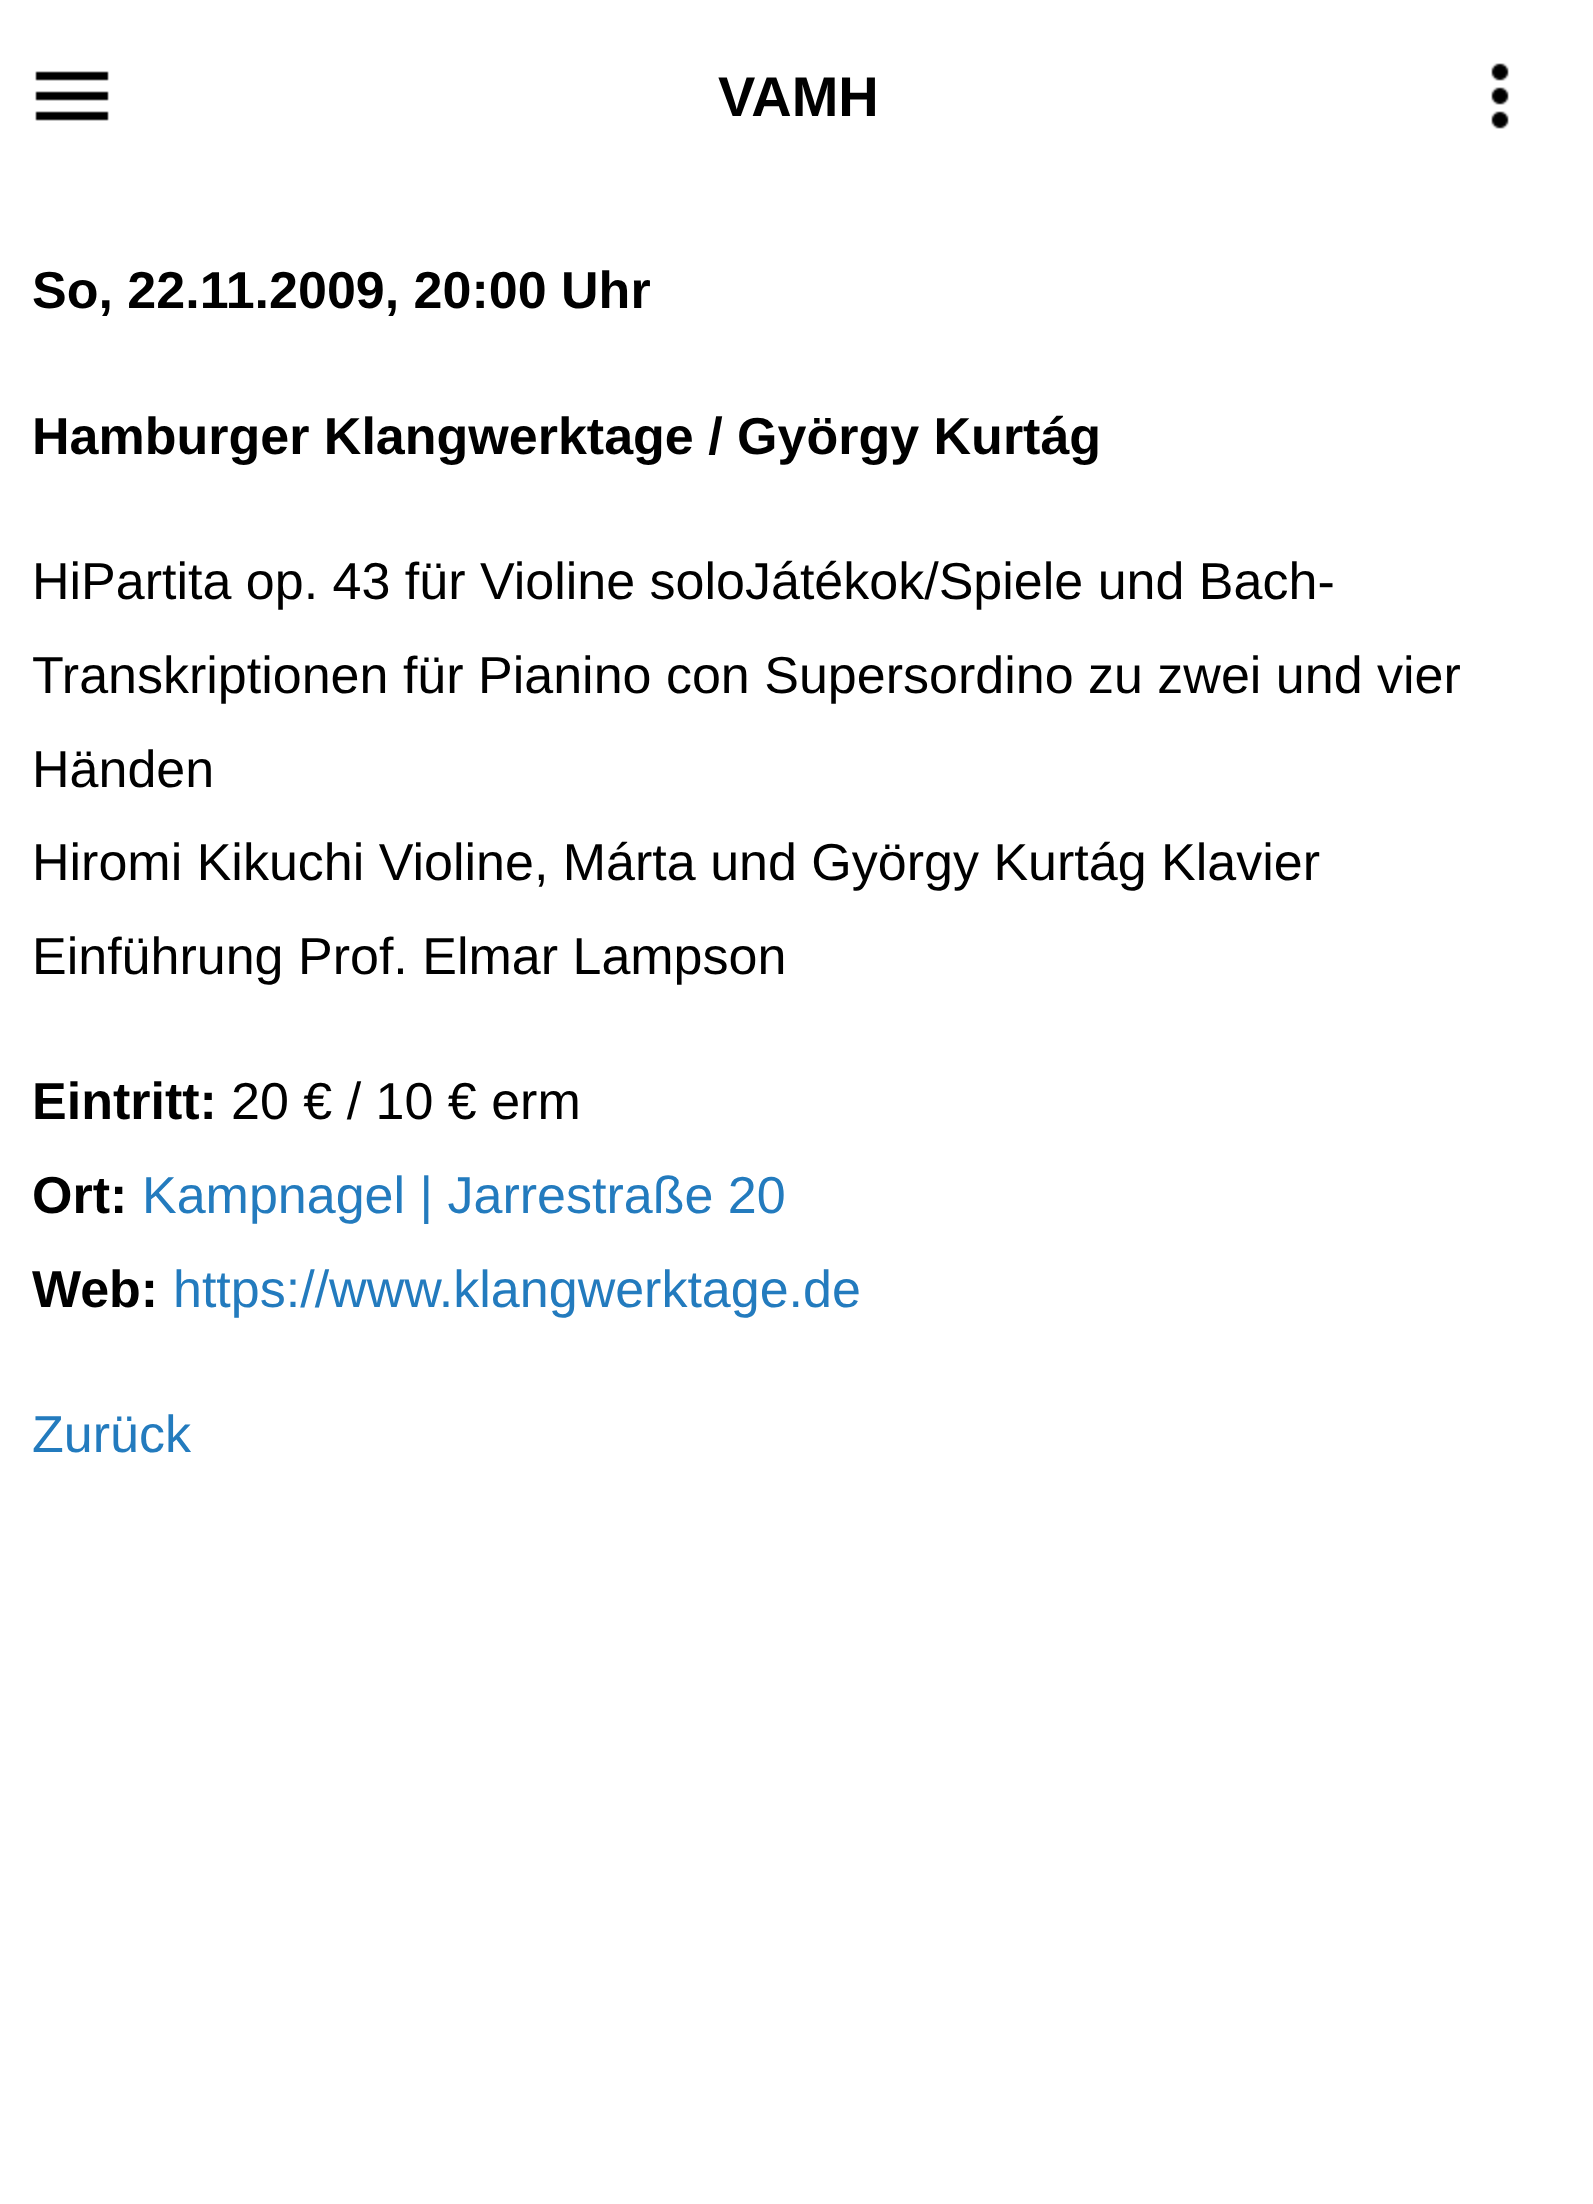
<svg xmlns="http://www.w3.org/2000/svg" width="1593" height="2204">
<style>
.a{font:bold 56px Liberation Sans;fill:#000}
.b{font:bold 52px Liberation Sans;fill:#000}
.c{font:52px Liberation Sans;fill:#000}
.d{font:52px Liberation Sans;fill:#237bbe}
</style>
<rect width="100%" height="100%" fill="#fff"/>
<image href="1.png" x="35" y="71" width="74" height="50"/>
<image href="2.png" x="1491" y="63" width="18" height="66"/>
<text class="a" x="718" y="116">VAMH</text>
<text class="b" x="32" y="308">So, 22.11.2009, 20:00 Uhr</text>
<text class="b" x="32" y="454">Hamburger Klangwerktage / György Kurtág</text>
<text class="c" x="32" y="599">HiPartita op. 43 für Violine soloJátékok/Spiele und Bach-</text>
<text class="c" x="32" y="693">Transkriptionen für Pianino con Supersordino zu zwei und vier</text>
<text class="c" x="32" y="787">Händen</text>
<text class="c" x="32" y="880">Hiromi Kikuchi Violine, Márta und György Kurtág Klavier</text>
<text class="c" x="32" y="974">Einführung Prof. Elmar Lampson</text>
<text class="b" x="32" y="1119">Eintritt:</text>
<text class="c" x="231" y="1119">20 € / 10 € erm</text>
<text class="b" x="32" y="1213">Ort:</text>
<text class="d" x="142" y="1213">Kampnagel | Jarrestraße 20</text>
<text class="b" x="32" y="1307">Web:</text>
<text class="d" x="173" y="1307">https://www.klangwerktage.de</text>
<text class="d" x="32" y="1452">Zurück</text>
</svg>
